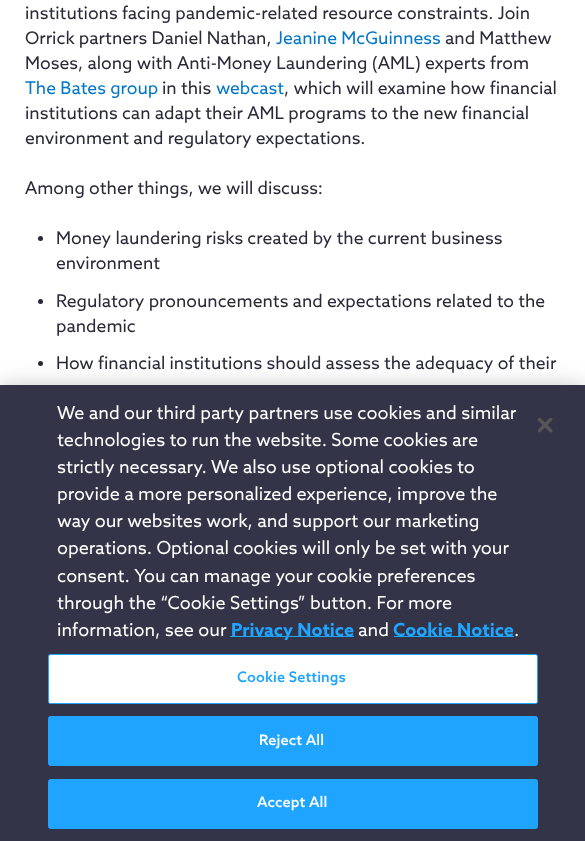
<svg xmlns="http://www.w3.org/2000/svg" width="585" height="841">
<style>
.a{font:17.5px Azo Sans;fill:#292938}
.b{font:17.5px Azo Sans;fill:#0077c7}
.c{font:18px Azo Sans;fill:#fff}
.d{font:bold 18px Azo Sans;fill:#1fa5ff}
.e{font:500 14.5px Azo Sans;letter-spacing:0.1px;fill:#1fa5ff}
.f{font:500 14.5px Azo Sans;letter-spacing:0.1px;fill:#fff}
</style>
<rect width="100%" height="100%" fill="#fff"/>
<circle fill="#292938" cx="40.5" cy="238.5" r="2.5"/>
<circle fill="#292938" cx="40.5" cy="301.5" r="2.5"/>
<circle fill="#292938" cx="40.5" cy="363.5" r="2.5"/>
<path fill="#00000033" filter="blur(11px)" d="M0 385h585v456H0z"/>
<path fill="#333447" d="M0 385h585v456H0z"/>
<path fill="#1fa5ff" d="M230 636h124v1H230z"/>
<path fill="#1fa5ff" d="M394 636h120v1H394z"/>
<rect fill="#fff" stroke="#1fa5ff" x="48.5" y="654.5" width="489" height="49" rx="2"/>
<rect fill="#1fa5ff" stroke="#1fa5ff" x="48.5" y="716.5" width="489" height="49" rx="2"/>
<rect fill="#1fa5ff" stroke="#1fa5ff" x="48.5" y="779.5" width="489" height="49" rx="2"/>
<image href="1.png" x="538" y="418" width="15" height="15"/>
<text class="a" x="25" y="19">institutions facing pandemic-related resource constraints. Join</text>
<text class="a" x="25" y="44">Orrick partners Daniel Nathan,</text>
<text class="b" x="276" y="44">Jeanine McGuinness</text>
<text class="a" x="445" y="44">and Matthew</text>
<text class="a" x="25" y="69">Moses, along with Anti-Money Laundering (AML) experts from</text>
<text class="b" x="25" y="94">The Bates group</text>
<text class="a" x="162" y="94">in this</text>
<text class="b" x="216" y="94">webcast</text>
<text class="a" x="284" y="94">, which will examine how financial</text>
<text class="a" x="25" y="119">institutions can adapt their AML programs to the new financial</text>
<text class="a" x="25" y="144">environment and regulatory expectations.</text>
<text class="a" x="25" y="194">Among other things, we will discuss:</text>
<text class="a" x="56" y="244">Money laundering risks created by the current business</text>
<text class="a" x="56" y="269">environment</text>
<text class="a" x="56" y="307">Regulatory pronouncements and expectations related to the</text>
<text class="a" x="56" y="332">pandemic</text>
<text class="a" x="56" y="369">How financial institutions should assess the adequacy of their</text>
<text class="c" x="57" y="419">We and our third party partners use cookies and similar</text>
<text class="c" x="57" y="446">technologies to run the website. Some cookies are</text>
<text class="c" x="57" y="473">strictly necessary. We also use optional cookies to</text>
<text class="c" x="57" y="500">provide a more personalized experience, improve the</text>
<text class="c" x="57" y="527">way our websites work, and support our marketing</text>
<text class="c" x="57" y="554">operations. Optional cookies will only be set with your</text>
<text class="c" x="57" y="582">consent. You can manage your cookie preferences</text>
<text class="c" x="57" y="609">through the “Cookie Settings” button. For more</text>
<text class="c" x="57" y="636">information, see our</text>
<text class="d" x="231" y="636">Privacy Notice</text>
<text class="c" x="358" y="636">and</text>
<text class="d" x="393" y="636">Cookie Notice</text>
<text class="c" x="514" y="636">.</text>
<text class="e" x="237" y="682">Cookie Settings</text>
<text class="f" x="259" y="745">Reject All</text>
<text class="f" x="257" y="807">Accept All</text>
</svg>
